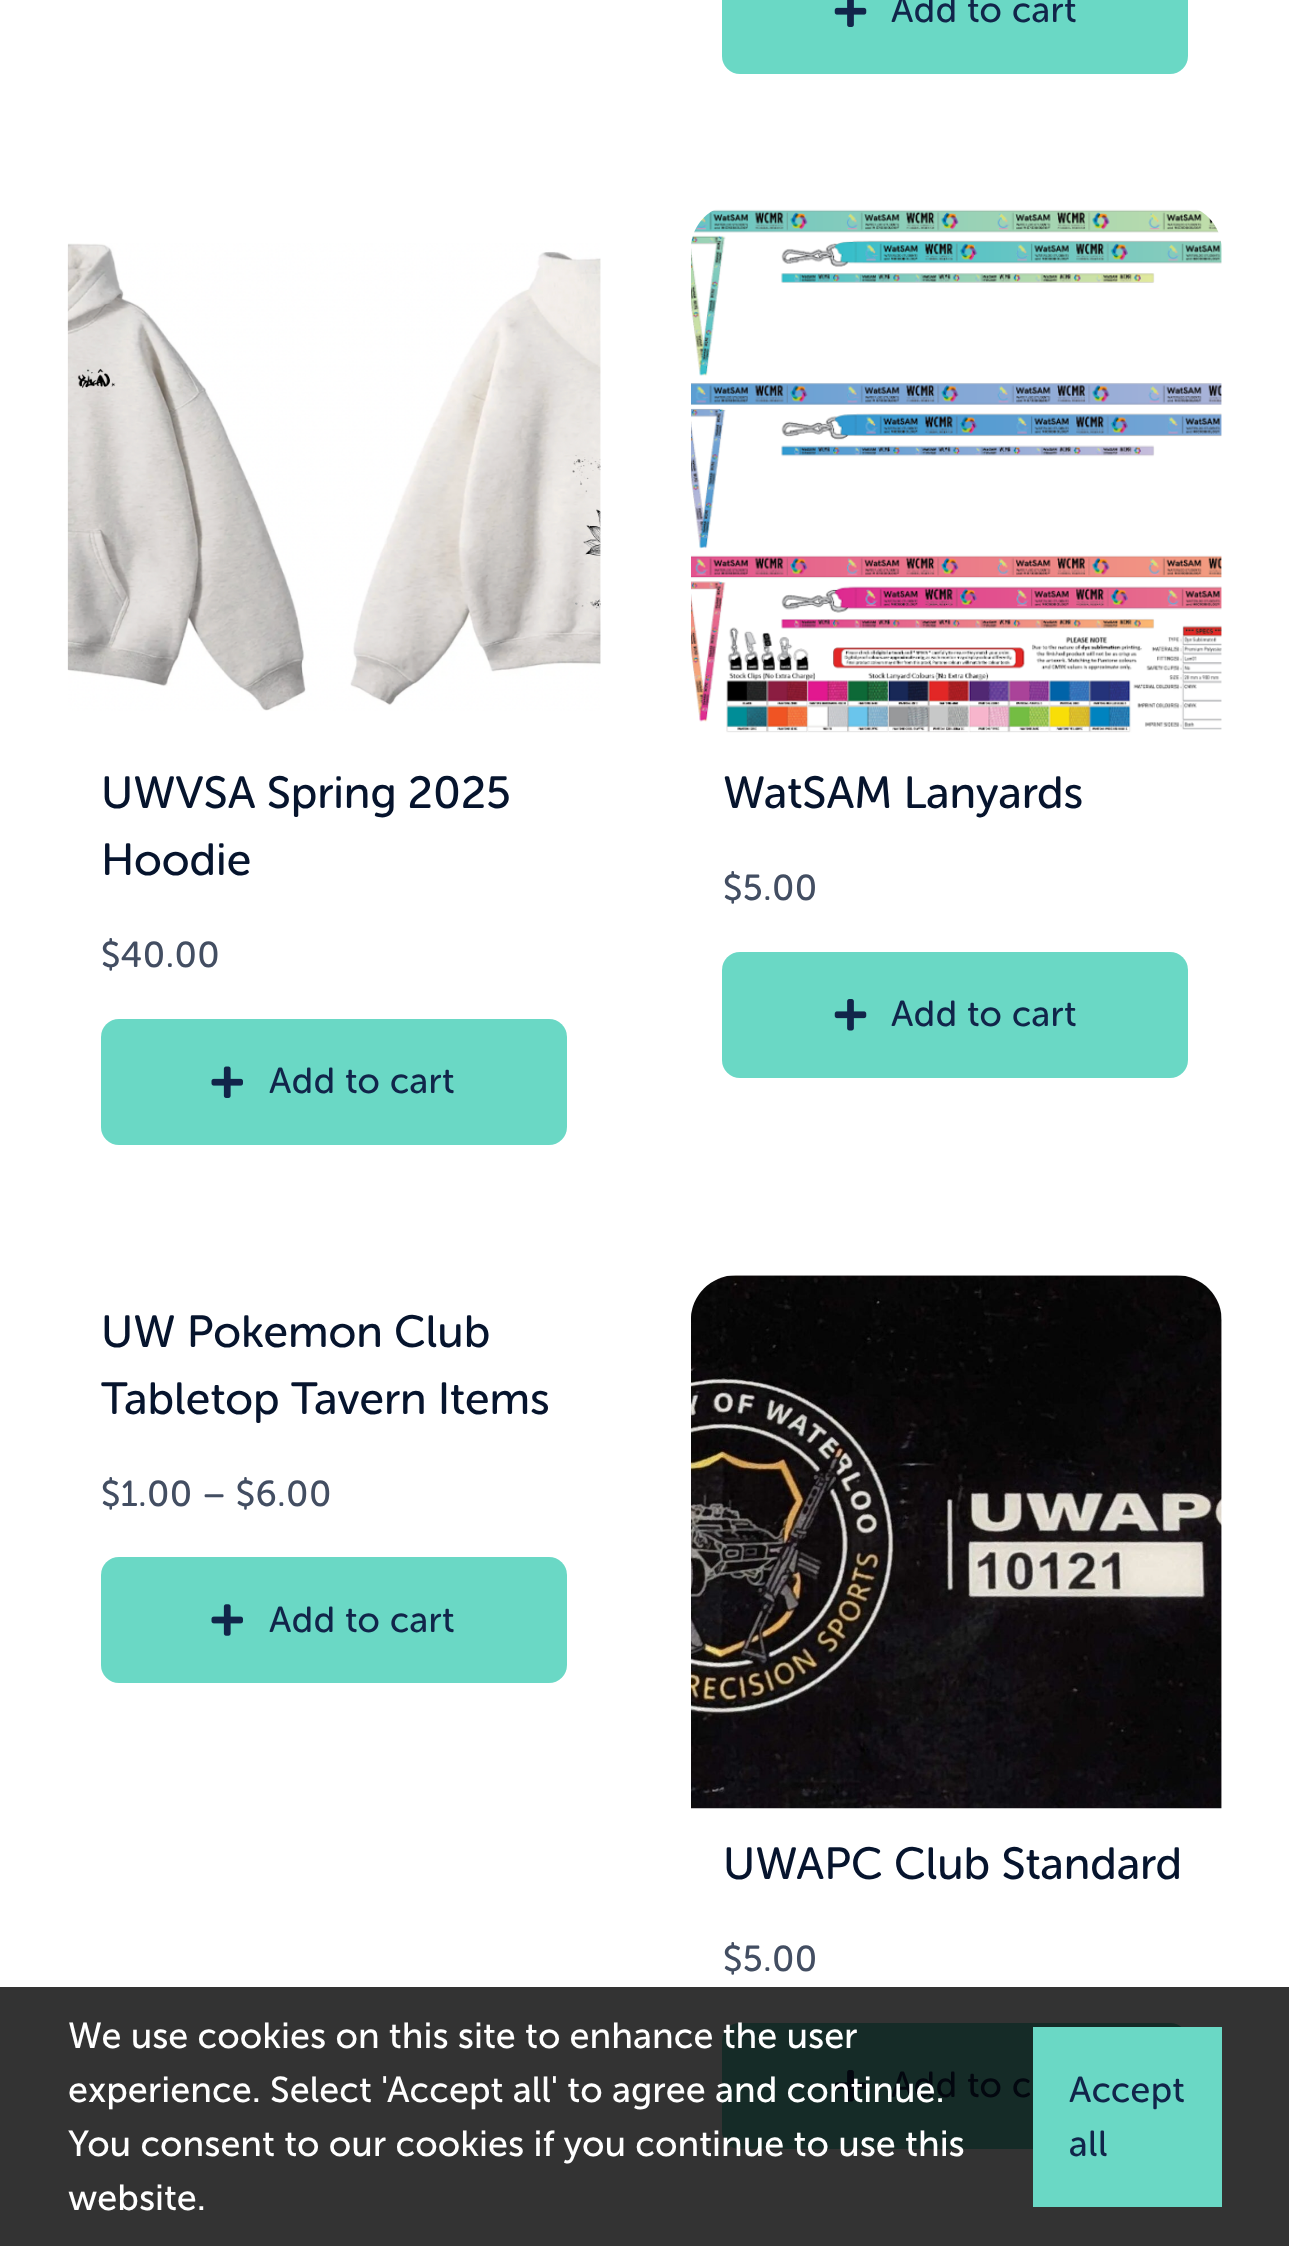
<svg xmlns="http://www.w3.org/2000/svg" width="1289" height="2246">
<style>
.a{font:36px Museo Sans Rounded;letter-spacing:0.5px;fill:#11254a}
.b{font:44.9px Museo Sans Rounded;fill:#06142d}
.c{font:36px Museo Sans Rounded;letter-spacing:0.5px;fill:#434e62}
.d{font:36px Museo Sans Rounded;letter-spacing:0.5px;fill:#03070f}
.e{font:36px 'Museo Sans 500';fill:#fff}
</style>
<rect width="100%" height="100%" fill="#fff"/>
<path fill="#333" d="M0 1987h1289v259H0z"/>
<rect fill="#6ad8c5" x="722" y="-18" width="466" height="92" rx="18"/>
<image href="1.png" x="834" y="0" width="33" height="27"/>
<image href="2.png" x="67" y="243" width="534" height="468"/>
<rect fill="#6ad8c5" x="101" y="1019" width="466" height="126" rx="18"/>
<image href="3.png" x="211" y="1066" width="32" height="32"/>
<image href="4.png" x="691" y="209" width="531" height="524"/>
<rect fill="#6ad8c5" x="722" y="952" width="466" height="126" rx="18"/>
<image href="5.png" x="834" y="999" width="33" height="32"/>
<rect fill="#6ad8c5" x="101" y="1557" width="466" height="126" rx="18"/>
<image href="6.png" x="211" y="1604" width="32" height="32"/>
<image href="7.png" x="691" y="1275" width="531" height="534"/>
<rect fill="#152b27" x="722" y="2023" width="466" height="126" rx="18"/>
<image href="8.png" x="834" y="2070" width="33" height="32"/>
<path fill="#6ad8c5" d="M1033 2027h189v180H1033z"/>
<text class="a" x="891" y="22">Add to cart</text>
<text class="b" x="101" y="808">UWVSA Spring 2025</text>
<text class="b" x="101" y="875">Hoodie</text>
<text class="c" x="101" y="967">$40.00</text>
<text class="a" x="269" y="1093">Add to cart</text>
<text class="b" x="723" y="808">WatSAM Lanyards</text>
<text class="c" x="723" y="900">$5.00</text>
<text class="a" x="891" y="1026">Add to cart</text>
<text class="b" x="101" y="1347">UW Pokemon Club</text>
<text class="b" x="101" y="1414">Tabletop Tavern Items</text>
<text class="c" x="101" y="1506">$1.00 – $6.00</text>
<text class="a" x="269" y="1632">Add to cart</text>
<text class="b" x="723" y="1879">UWAPC Club Standard</text>
<text class="c" x="723" y="1971">$5.00</text>
<text class="d" x="891" y="2097">Add to c</text>
<text class="e" x="68" y="2048">We use cookies on this site to enhance the user</text>
<text class="e" x="68" y="2102">experience. Select 'Accept all' to agree and continue.</text>
<text class="e" x="68" y="2156">You consent to our cookies if you continue to use this</text>
<text class="e" x="68" y="2210">website.</text>
<text class="a" x="1069" y="2102">Accept</text>
<text class="a" x="1069" y="2156">all</text>
</svg>
